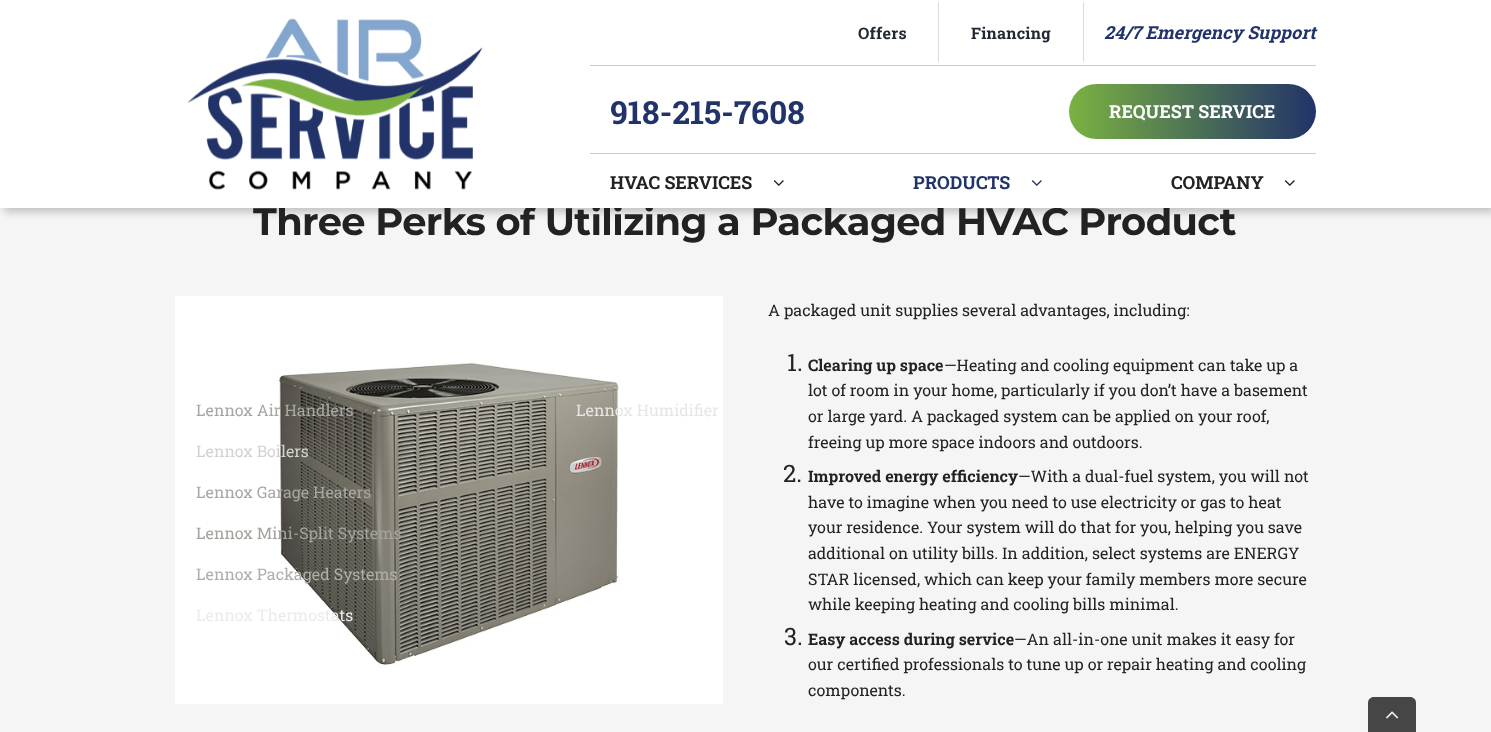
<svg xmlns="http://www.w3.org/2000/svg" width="1491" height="732">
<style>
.a{font:16px Roboto Slab;fill:#a9a7a4}
.b{font:16px Roboto Slab;fill:#d3d2d0}
.c{font:16px Roboto Slab;fill:#a3a29c}
.d{font:16px Roboto Slab;fill:#b0aeaa}
.e{font:16px Roboto Slab;fill:#ecebeb}
.f{font:16px Roboto Slab;fill:#e6e6e4}
.g{font:bold 38.4px Montserrat;letter-spacing:-0.6px;fill:#222}
.h{font:bold 18px Roboto Slab;fill:#222}
.i{font:bold 18px Roboto Slab;fill:#223369}
.j{font:bold 18px Roboto Slab;fill:#fff}
.k{font:bold 32px Roboto Slab;fill:#223369}
.l{font:bold 16px Roboto Slab;letter-spacing:0.25px;fill:#212934}
.m{font:italic bold 18px Roboto Slab;fill:#223369}
.n{font:16px Roboto Slab;fill:#222}
.o{font:24px Roboto Slab;fill:#222}
.p{font:bold 16px Roboto Slab;fill:#222}
</style>
<defs>
<linearGradient id="g1" gradientUnits="userSpaceOnUse" x1="1069" y1="112" x2="1316" y2="111"><stop offset="0" stop-color="#7ab242"/><stop offset="1" stop-color="#223369"/></linearGradient>
</defs>
<rect width="100%" height="100%" fill="#f5f5f5"/>
<path fill="#21212140" filter="blur(4px)" d="M4 4h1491v208H4z"/>
<image href="4.png" x="175" y="296" width="548" height="408"/>
<path fill="#464646" d="M1374 697h36c3.5 0 6 2.5 6 6v29h-48v-29c0-3.5 2.5-6 6-6z"/>
<image href="5.png" x="1386" y="711" width="13" height="8"/>
<text class="a" x="196" y="416">Lennox Air Handlers</text>
<text class="b" x="196" y="457">Lennox Boilers</text>
<text class="a" x="196" y="498">Lennox Garage Heaters</text>
<text class="c" x="196" y="539">Lennox Mini-Split Systems</text>
<text class="d" x="196" y="580">Lennox Packaged Systems</text>
<text class="e" x="196" y="621">Lennox Thermostats</text>
<text class="f" x="576" y="416">Lennox Humidifier</text>
<text class="g" x="253" y="235">Three Perks of Utilizing a Packaged HVAC Product</text>
<path fill="#fff" d="M0 0h1491v208H0z"/>
<image href="3.png" x="1284" y="180" width="11" height="6"/>
<text class="h" x="1171" y="189">COMPANY</text>
<image href="2.png" x="1031" y="180" width="11" height="6"/>
<text class="i" x="913" y="189">PRODUCTS</text>
<image href="3.png" x="773" y="180" width="11" height="6"/>
<text class="h" x="610" y="189">HVAC SERVICES</text>
<rect fill="url(#g1)" x="1069" y="84" width="247" height="55" rx="27.5"/>
<text class="j" x="1109" y="118">REQUEST SERVICE</text>
<text class="k" x="610" y="124">918-215-7608</text>
<path fill="#ccc" d="M590 153h726v1H590z"/>
<text class="l" x="971" y="39">Financing</text>
<text class="l" x="858" y="39">Offers</text>
<path fill="#dbdbdb" d="M1083 2h1v60H1083z"/>
<path fill="#dbdbdb" d="M938 2h1v60H938z"/>
<text class="m" x="1104" y="39">24/7 Emergency Support</text>
<path fill="#ccc" d="M590 65h726v1H590z"/>
<image href="1.png" x="187" y="18" width="296" height="172"/>
<text class="n" x="768" y="316">A packaged unit supplies several advantages, including:</text>
<text class="o" x="787" y="371">1.</text>
<text class="p" x="808" y="371">Clearing up space</text>
<text class="n" x="944" y="371">—Heating and cooling equipment can take up a</text>
<text class="n" x="808" y="396">lot of room in your home, particularly if you don’t have a basement</text>
<text class="n" x="808" y="422">or large yard. A packaged system can be applied on your roof,</text>
<text class="n" x="808" y="448">freeing up more space indoors and outdoors.</text>
<text class="o" x="783" y="482">2.</text>
<text class="p" x="808" y="482">Improved energy efficiency</text>
<text class="n" x="1018" y="482">—With a dual-fuel system, you will not</text>
<text class="n" x="808" y="508">have to imagine when you need to use electricity or gas to heat</text>
<text class="n" x="808" y="533">your residence. Your system will do that for you, helping you save</text>
<text class="n" x="808" y="559">additional on utility bills. In addition, select systems are ENERGY</text>
<text class="n" x="808" y="585">STAR licensed, which can keep your family members more secure</text>
<text class="n" x="808" y="610">while keeping heating and cooling bills minimal.</text>
<text class="o" x="784" y="645">3.</text>
<text class="p" x="808" y="645">Easy access during service</text>
<text class="n" x="1014" y="645">—An all-in-one unit makes it easy for</text>
<text class="n" x="808" y="670">our certified professionals to tune up or repair heating and cooling</text>
<text class="n" x="808" y="696">components.</text>
</svg>
